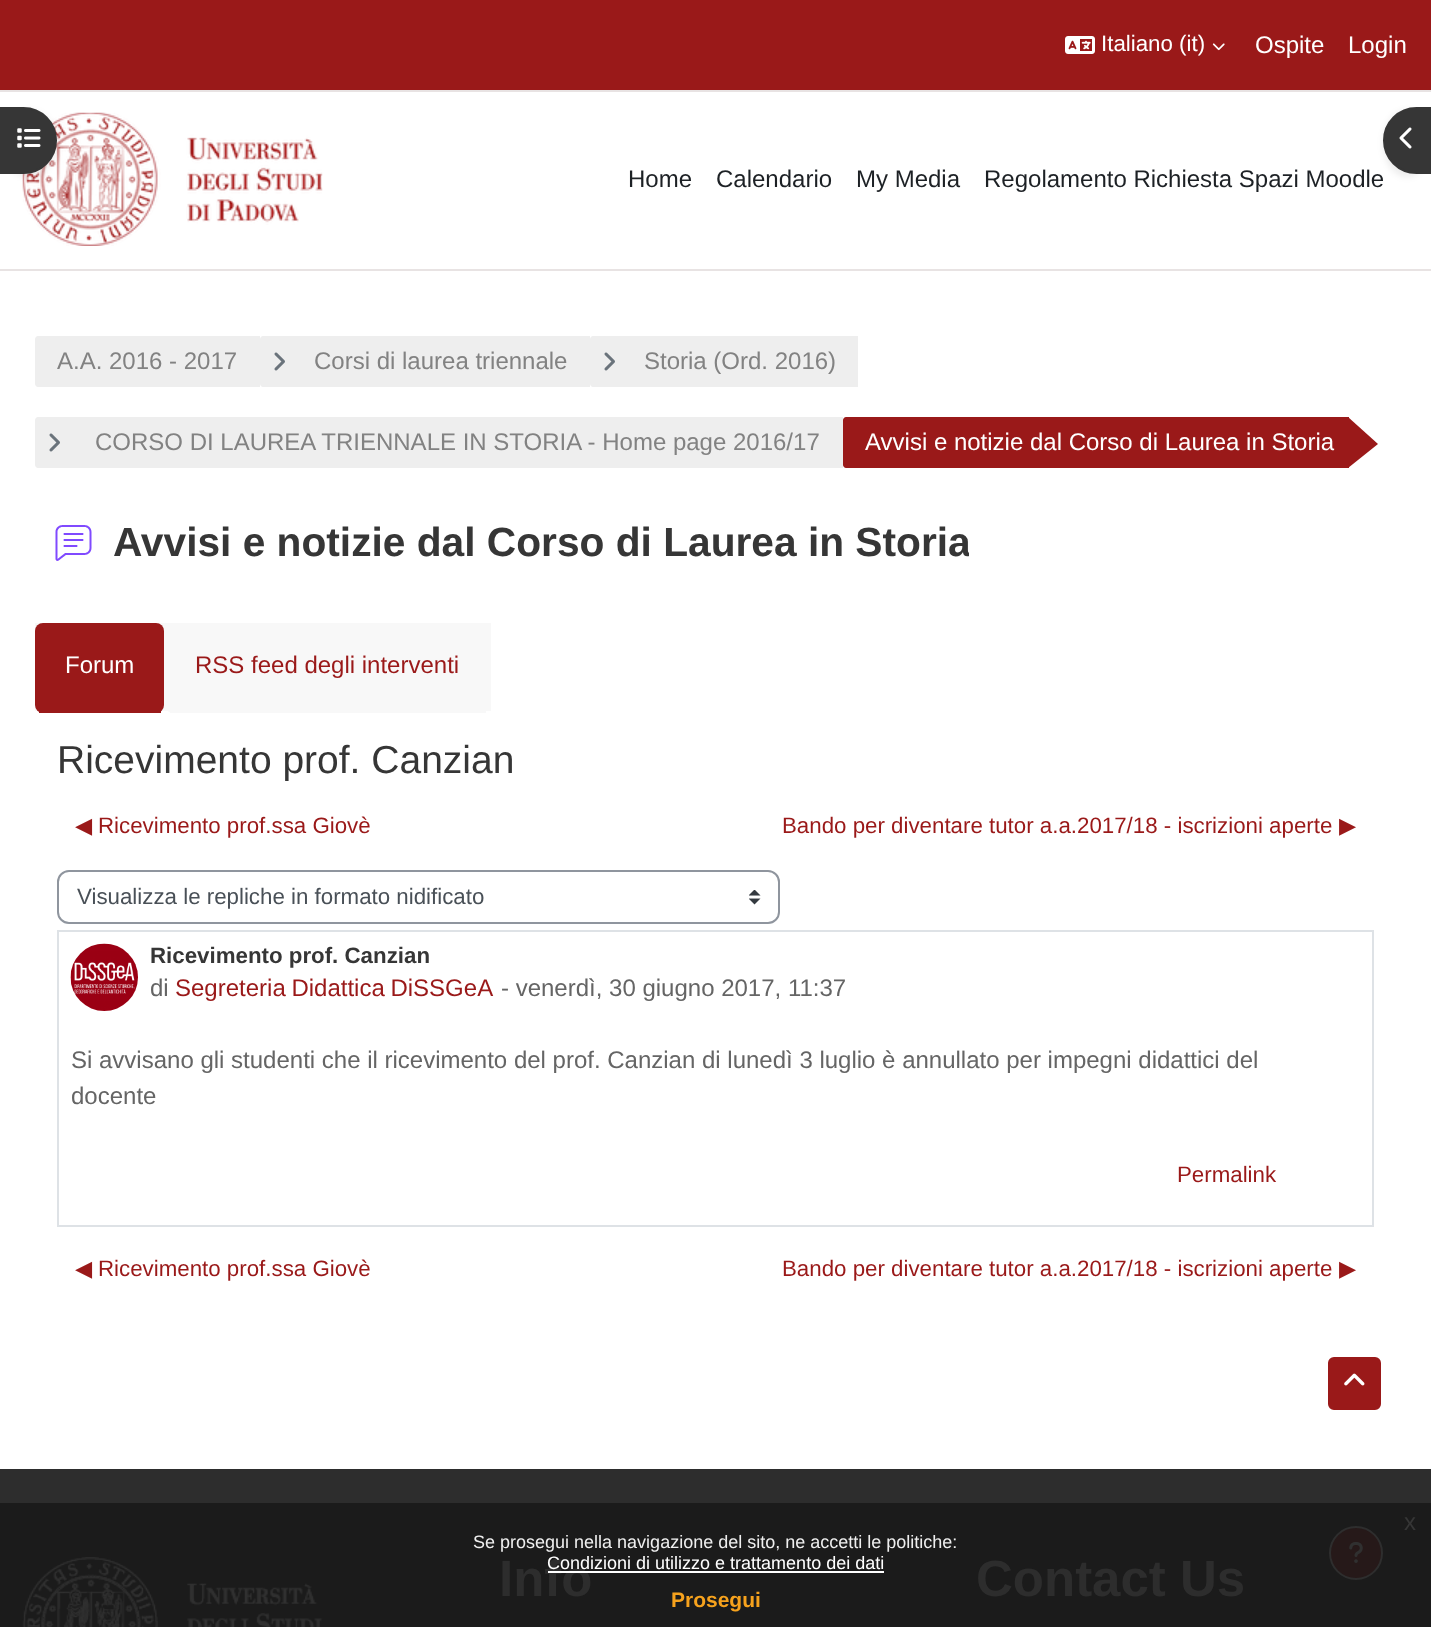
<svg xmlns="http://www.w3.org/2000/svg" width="1431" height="1627">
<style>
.a{font:22.3px Liberation Sans;fill:#fff}
.b{font:24px Liberation Sans;fill:#fff}
.c{font:24px Liberation Sans;fill:#1d2125}
.d{font:24px Liberation Sans;fill:#828282}
.e{font:bold 40.7px Liberation Sans;fill:#363636}
.f{font:24px Liberation Sans;fill:#9a1919}
.g{font:39px Liberation Sans;fill:#363636}
.h{font:22.3px DejaVu Sans;fill:#9a1919}
.i{font:22.3px Liberation Sans;fill:#9a1919}
.j{font:22.3px Liberation Sans;fill:#495057}
.k{font:bold 22.3px Liberation Sans;fill:#363636}
.l{font:24px Liberation Sans;fill:#656565}
.m{font:bold 51px Liberation Sans;fill:#2d2d2d}
.n{font:24px Liberation Sans;fill:#363636}
.o{font:18px Liberation Sans;fill:#efefef}
.p{font:18px Liberation Sans;fill:#fff}
.q{font:bold 21px Liberation Sans;fill:#f6a21d}
</style>
<defs>
<clipPath id="clip1"><path d="M35 498h934v90H35z"/></clipPath>
</defs>
<rect width="100%" height="100%" fill="#fff"/>
<path fill="#9a1919" d="M0 0h1431v90H0z"/>
<path fill="#e8e3e3" d="M0 90h1431v2H0z"/>
<image href="1.png" x="1065" y="36" width="30" height="18"/>
<image href="2.png" x="1212" y="43" width="13" height="8"/>
<path fill="#e8e3e3" d="M0 269h1431v2H0z"/>
<image href="3.png" x="22" y="112" width="301" height="134"/>
<rect fill="#00000012" filter="blur(3px)" y="110" width="57" height="67" rx="34"/>
<path fill="#363636" stroke="#363636" stroke-width="2" d="M1 108h22.5c18 0 32.5 14.5 32.5 32.5c0 18-14.5 32.5-32.5 32.5h-22.5z"/>
<image href="4.png" x="17" y="128" width="24" height="20"/>
<rect fill="#00000012" filter="blur(3px)" x="1383" y="110" width="48" height="67" rx="34"/>
<path fill="#eee" d="M38 336h222v51h-222c-1.5 0-3-1.5-3-3v-45c0-1.5 1.5-3 3-3z"/>
<path fill="#eee" d="M263 336h327v51h-327c-1.5 0-3-1.5-3-3v-45c0-1.5 1.5-3 3-3z"/>
<image href="6.png" x="274" y="352" width="11" height="19"/>
<path fill="#eee" d="M593 336h265v51h-265c-1.5 0-3-1.5-3-3v-45c0-1.5 1.5-3 3-3z"/>
<image href="6.png" x="604" y="352" width="11" height="19"/>
<path fill="#eee" d="M38 417h805v51h-805c-1.5 0-3-1.5-3-3v-45c0-1.5 1.5-3 3-3z"/>
<image href="6.png" x="49" y="433" width="11" height="19"/>
<path fill="#9a1919" d="M846 417h503v51h-503c-1.5 0-3-1.5-3-3v-45c0-1.5 1.5-3 3-3z"/>
<path fill="#9a1919" d="M1348 468v-51l30 27z"/>
<image href="7.png" x="55" y="525" width="37" height="36"/>
<path fill="#f8f8f8" d="M35 623h456v88H35z"/>
<rect fill="#9a1919" x="35" y="623" width="129" height="90" rx="8"/>
<path fill="#9a1919" d="M39 711h122v2H39z"/>
<rect fill="#f8f8f8" x="165" y="623" width="324" height="90" rx="8"/>
<path fill="#f8f8f8" d="M170 711h316v2H170z"/>
<image href="8.png" x="749" y="890" width="12" height="15"/>
<rect fill="none" stroke="#8f959e" stroke-width="2" x="58" y="871" width="721" height="52" rx="11"/>
<path fill="none" stroke="#dee2e6" stroke-width="2" d="M58 931h1315v295H58z"/>
<image href="9.png" x="70" y="943" width="68" height="68"/>
<rect fill="#9a1919" stroke="#fff" stroke-width="2" x="1327" y="1356" width="55" height="55" rx="7"/>
<image href="10.png" x="1344" y="1373" width="21" height="13"/>
<path fill="#2d2d2d" d="M0 1469h1431v34H0z"/>
<path fill="#1b1b1b" d="M0 1503h1431v124H0z"/>
<image href="11.png" x="22" y="1557" width="301" height="70"/>
<circle fill="#261919" stroke="#2e2e2e" stroke-width="2" cx="1356" cy="1553" r="26"/>
<image href="12.png" x="1349" y="1542" width="14" height="21"/>
<text class="a" x="1101" y="51">Italiano (it)</text>
<text class="b" x="1255" y="53">Ospite</text>
<text class="b" x="1348" y="53">Login</text>
<text class="c" x="628" y="187">Home</text>
<text class="c" x="716" y="187">Calendario</text>
<text class="c" x="856" y="187">My Media</text>
<text class="c" x="984" y="187">Regolamento Richiesta Spazi Moodle</text>
<path fill="#363636" stroke="#363636" stroke-width="2" d="M1416.5 108h13.5v65h-13.5c-18 0-32.5-14.5-32.5-32.5c0-18 14.5-32.5 32.5-32.5z"/>
<image href="5.png" x="1399" y="127" width="13" height="22"/>
<text class="d" x="57" y="369">A.A. 2016 - 2017</text>
<text class="d" x="314" y="369">Corsi di laurea triennale</text>
<text class="d" x="644" y="369">Storia (Ord. 2016)</text>
<text class="d" x="95" y="450">CORSO DI LAUREA TRIENNALE IN STORIA - Home page 2016/17</text>
<text class="b" x="865" y="450">Avvisi e notizie dal Corso di Laurea in Storia</text>
<g clip-path="url(#clip1)">
<text class="e" x="113" y="556">Avvisi e notizie dal Corso di Laurea in Storia</text>
</g>
<text class="b" x="65" y="673">Forum</text>
<text class="f" x="195" y="673">RSS feed degli interventi</text>
<text class="g" x="57" y="773">Ricevimento prof. Canzian</text>
<text class="h" x="75" y="833">◀︎</text>
<text class="i" x="98" y="833">Ricevimento prof.ssa Giovè</text>
<text class="i" x="782" y="833">Bando per diventare tutor a.a.2017/18 - iscrizioni aperte</text>
<text class="h" x="1339" y="833">▶︎</text>
<text class="j" x="77" y="904">Visualizza le repliche in formato nidificato</text>
<text class="k" x="150" y="963">Ricevimento prof. Canzian</text>
<text class="l" x="150" y="996">di</text>
<text class="f" x="175" y="996" word-spacing="-1">Segreteria Didattica DiSSGeA</text>
<text class="l" x="501" y="996">- venerdì, 30 giugno 2017, 11:37</text>
<text class="l" x="71" y="1068">Si avvisano gli studenti che il ricevimento del prof. Canzian di lunedì 3 luglio è annullato per impegni didattici del</text>
<text class="l" x="71" y="1104">docente</text>
<text class="i" x="1177" y="1182">Permalink</text>
<text class="h" x="75" y="1276">◀︎</text>
<text class="i" x="98" y="1276">Ricevimento prof.ssa Giovè</text>
<text class="i" x="782" y="1276">Bando per diventare tutor a.a.2017/18 - iscrizioni aperte</text>
<text class="h" x="1339" y="1276">▶︎</text>
<text class="m" x="499" y="1596">Info</text>
<text class="m" x="976" y="1596">Contact Us</text>
<text class="n" x="1404" y="1530">x</text>
<text class="o" x="473" y="1548">Se prosegui nella navigazione del sito, ne accetti le politiche:</text>
<text class="p" x="547" y="1569">Condizioni di utilizzo e trattamento dei dati</text>
<path fill="#fff" d="M548 1571h336v2H548z"/>
<text class="q" x="671" y="1607">Prosegui</text>
</svg>
